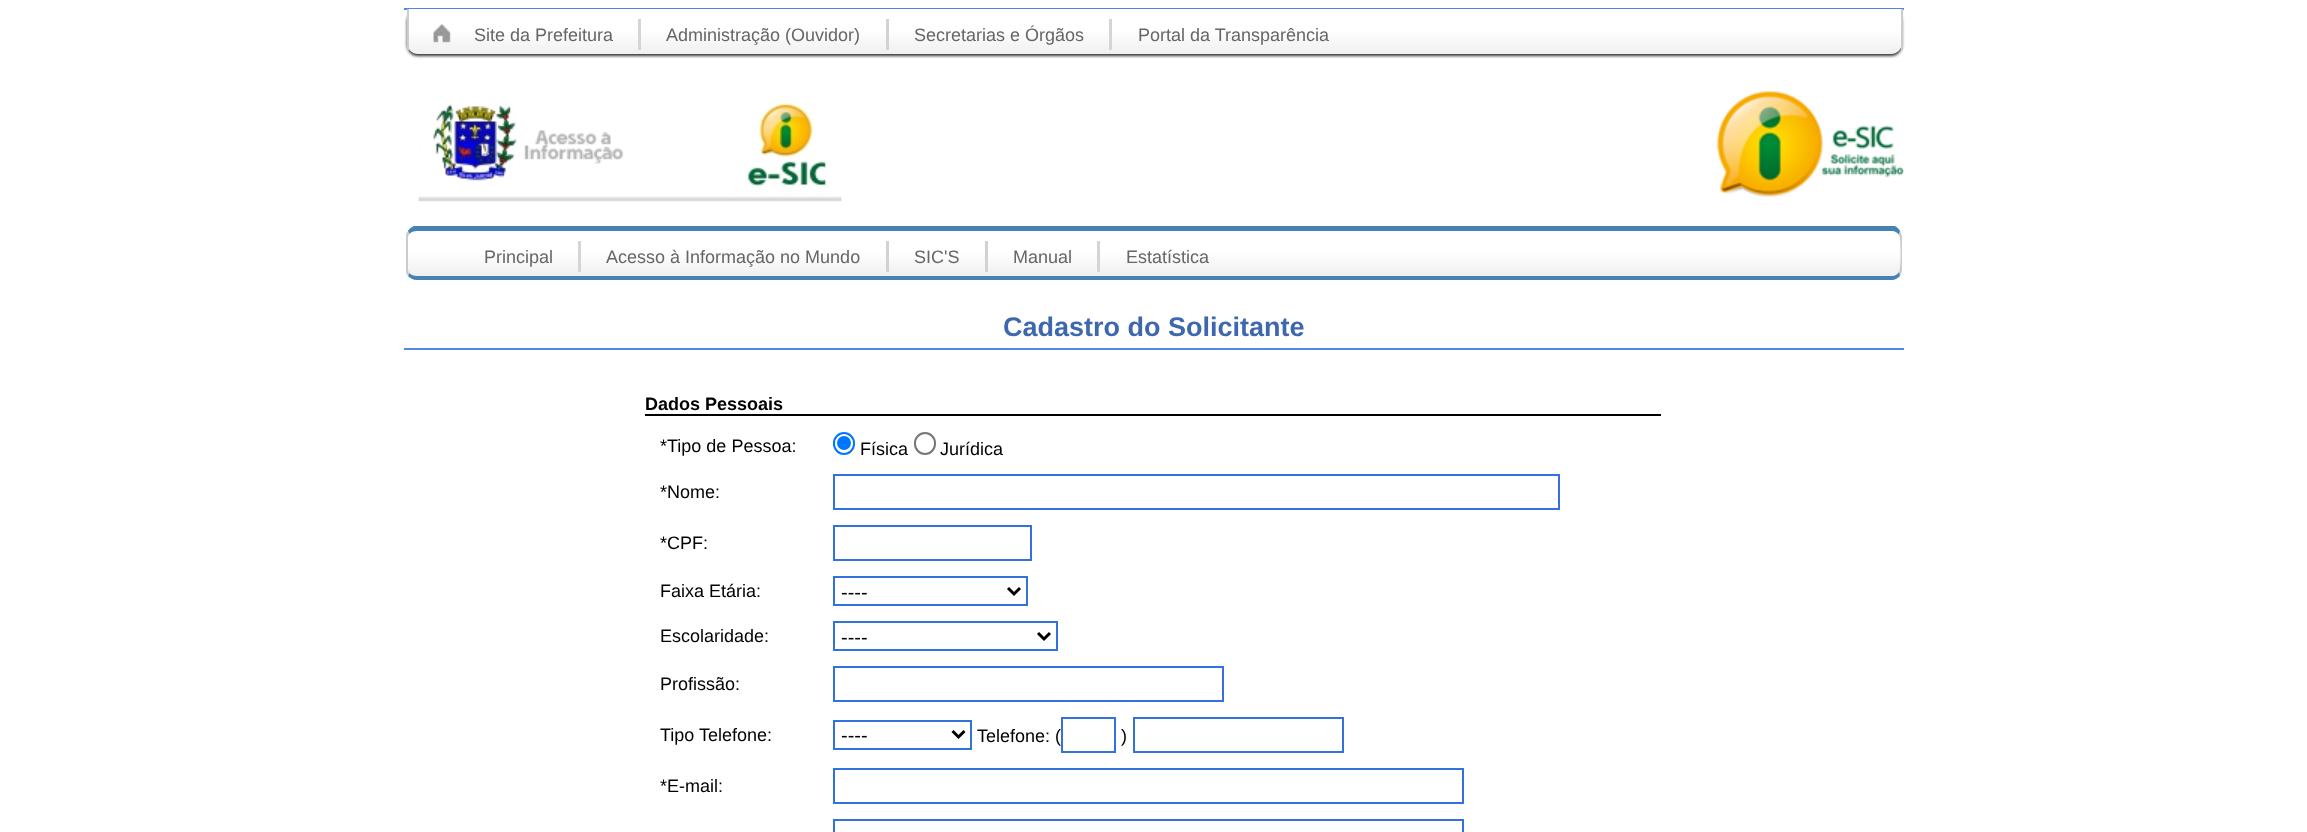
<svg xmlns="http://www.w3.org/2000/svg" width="2307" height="832">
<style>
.a{font:18px Liberation Sans;fill:#666}
.b{font:bold 27px Liberation Sans;fill:#3e68ad}
.c{font:bold 18px Liberation Sans;fill:#000}
.d{font:18px Liberation Sans;fill:#000}
.e{font:20px Liberation Sans;fill:#000}
</style>
<defs>
<linearGradient id="g1" gradientUnits="userSpaceOnUse" x1="1154" y1="9" x2="1154" y2="54"><stop offset="0.46" stop-color="#fff"/><stop offset="0.98" stop-color="#f0f0f0"/><stop offset="1" stop-color="#f0f0f0"/></linearGradient>
<linearGradient id="g2" gradientUnits="userSpaceOnUse" x1="1154" y1="231" x2="1154" y2="276"><stop offset="0.46" stop-color="#fff"/><stop offset="0.98" stop-color="#f0f0f0"/><stop offset="1" stop-color="#f0f0f0"/></linearGradient>
</defs>
<rect width="100%" height="100%" fill="#fff"/>
<path fill="#5188e4" d="M404 8h1500v2H404z"/>
<rect fill="#323232" filter="blur(1.5px)" x="407" y="11" width="1495" height="45" rx="11"/>
<path fill="url(#g1)" d="M407 9h1495v34c0 6-5 11-11 11h-1473c-6 0-11-5-11-11z"/>
<path fill="#ccc" d="M1901 9h2v41H1901z"/>
<path fill="#ccc" d="M407 9h2v41H407z"/>
<image href="1.png" x="433" y="23" width="18" height="20"/>
<path fill="#d5d5d5" d="M638 19h3v31H638z"/>
<path fill="#d2d2d2" d="M886 19h3v31H886z"/>
<path fill="#d5d5d5" d="M1109 19h3v31H1109z"/>
<image href="2.png" x="418" y="99" width="424" height="103"/>
<image href="3.png" x="1717" y="91" width="187" height="106"/>
<path fill="url(#g2)" d="M417 231h1475c4 0 8 3 8 6v33c0 3-4 6-8 6h-1475c-5 0-9-3-9-6v-33c0-3 4-6 9-6z"/>
<path fill="#4682b4" d="M417 231c-3 0-6 1-8 3l-1-3c1-2 3-4 6-5h1481c2 1 4 3 5 5l-1 4c-1-2-4-4-7-4z"/>
<path fill="#ccc" d="M1902 270v-33c0-2-1-4-2-6l-1 4c2 2 2 35 0 37l1 4c1-2 2-4 2-6z"/>
<path fill="#4682b4" d="M1900 276c-2 2-5 4-8 4h-1475c-4 0-7-2-9-4l1-3c2 2 5 3 8 3h1475c3 0 6-2 7-4z"/>
<path fill="#ccc" d="M406 234l2-3l1 3l-1 3v33l1 3l-1 3l-2-3z"/>
<path fill="#d5d5d5" d="M578 241h3v31H578z"/>
<path fill="#d2d2d2" d="M886 241h3v31H886z"/>
<path fill="#d2d2d2" d="M985 241h3v31H985z"/>
<path fill="#d5d5d5" d="M1097 241h3v31H1097z"/>
<path fill="#5188e4" d="M404 348h1500v2H404z"/>
<path fill="#000" d="M645 414h1016v2H645z"/>
<rect fill="none" stroke="#0075ff" stroke-width="2" x="834" y="433" width="20" height="21" rx="10"/>
<circle fill="#0075ff" cx="844" cy="443" r="7"/>
<rect fill="none" stroke="#767676" stroke-width="2" x="915" y="433" width="20" height="21" rx="10"/>
<path fill="none" stroke="#3172de" stroke-width="2" d="M834 475h725v34H834z"/>
<path fill="none" stroke="#3172de" stroke-width="2" d="M834 526h197v34H834z"/>
<path fill="none" stroke="#3172de" stroke-width="2" d="M834 577h193v28H834z"/>
<path fill="none" stroke="#000" stroke-width="3" d="M1008 588l6 6l6-6"/>
<path fill="none" stroke="#3172de" stroke-width="2" d="M834 622h223v28H834z"/>
<path fill="none" stroke="#000" stroke-width="3" d="M1038 633l6 6l6-6"/>
<path fill="none" stroke="#3172de" stroke-width="2" d="M834 667h389v34H834z"/>
<path fill="none" stroke="#3172de" stroke-width="2" d="M834 721h137v28H834z"/>
<path fill="none" stroke="#000" stroke-width="3" d="M952.5 731l6 6l6-6"/>
<path fill="none" stroke="#3172de" stroke-width="2" d="M1062 718h53v34H1062z"/>
<path fill="none" stroke="#3172de" stroke-width="2" d="M1134 718h209v34H1134z"/>
<path fill="none" stroke="#3172de" stroke-width="2" d="M834 769h629v34H834z"/>
<path fill="none" stroke="#3172de" stroke-width="2" d="M834 820h629v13H834z"/>
<text class="a" x="474" y="41">Site da Prefeitura</text>
<text class="a" x="666" y="41">Administração (Ouvidor)</text>
<text class="a" x="914" y="41">Secretarias e Órgãos</text>
<text class="a" x="1138" y="41">Portal da Transparência</text>
<text class="a" x="484" y="263">Principal</text>
<text class="a" x="606" y="263">Acesso à Informação no Mundo</text>
<text class="a" x="914" y="263">SIC'S</text>
<text class="a" x="1013" y="263">Manual</text>
<text class="a" x="1126" y="263">Estatística</text>
<text class="b" x="1003" y="336">Cadastro do Solicitante</text>
<text class="c" x="645" y="410">Dados Pessoais</text>
<text class="d" x="660" y="452">*Tipo de Pessoa:</text>
<text class="d" x="860" y="455">Física</text>
<text class="d" x="940" y="455">Jurídica</text>
<text class="d" x="660" y="498">*Nome:</text>
<text class="d" x="660" y="549">*CPF:</text>
<text class="d" x="660" y="597">Faixa Etária:</text>
<text class="e" x="841" y="599">----</text>
<text class="d" x="660" y="642">Escolaridade:</text>
<text class="e" x="841" y="644">----</text>
<text class="d" x="660" y="690">Profissão:</text>
<text class="d" x="660" y="741">Tipo Telefone:</text>
<text class="e" x="841" y="742">----</text>
<text class="d" x="977" y="742">Telefone: (</text>
<text class="d" x="1121" y="742">)</text>
<text class="d" x="660" y="792">*E-mail:</text>
</svg>
